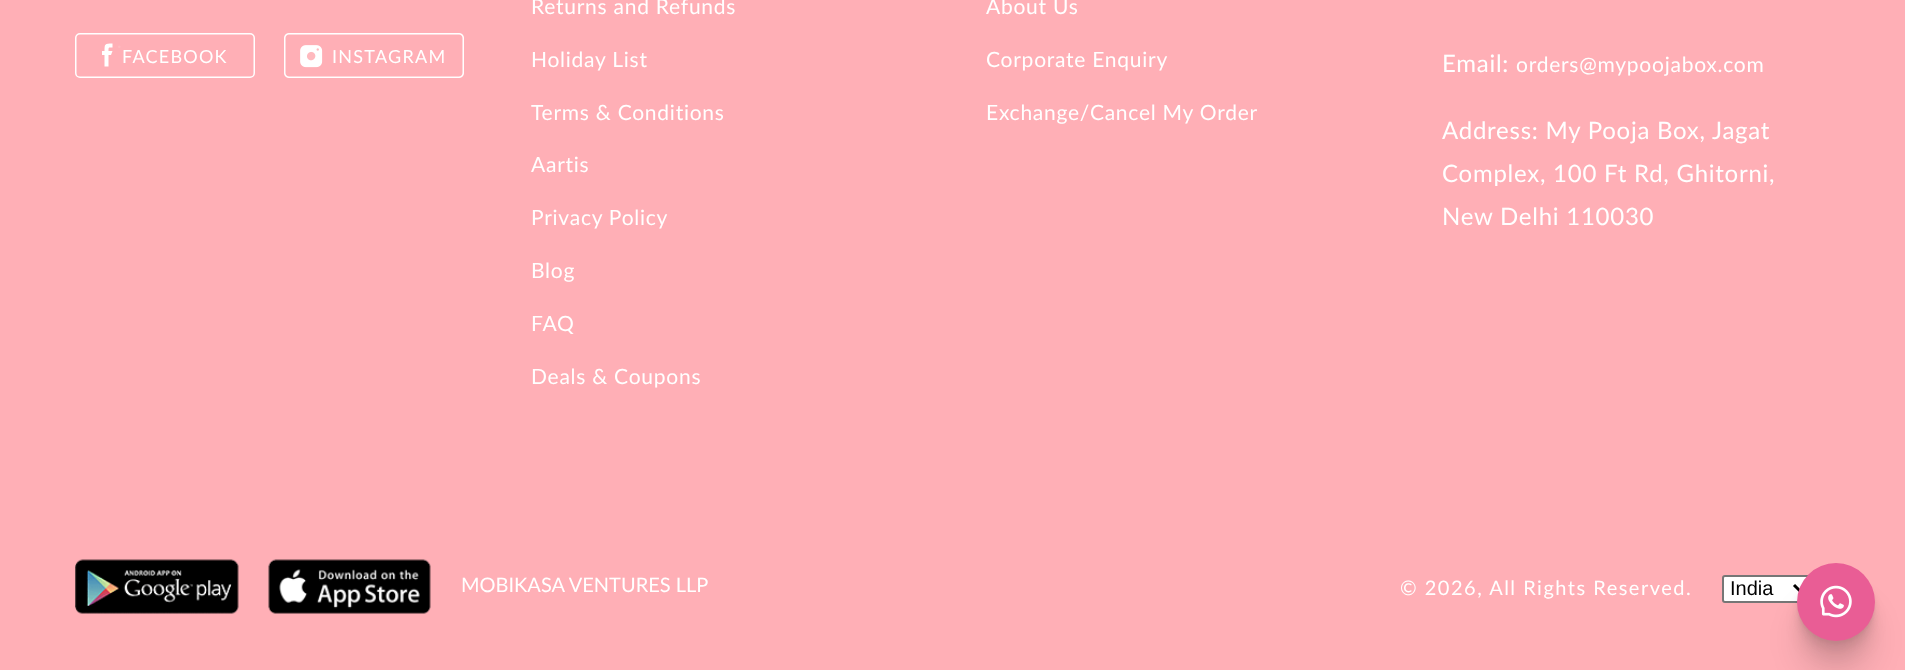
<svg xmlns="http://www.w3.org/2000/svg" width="1905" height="670">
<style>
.a{font:18px Lato;letter-spacing:1.25px;fill:#fff}
.b{font:21px Lato;letter-spacing:0.75px;fill:#fff}
.c{font:24px Lato;letter-spacing:0.75px;fill:#fff}
.d{font:20px Lato;fill:#fff}
.e{font:20px Lato;letter-spacing:1.5px;fill:#fff}
.f{font:20px Liberation Sans;fill:#000}
</style>
<rect width="100%" height="100%" fill="#ffafb6"/>
<path fill="#fff" d="M111 55h-2.5v11.5h-4v-11.5h-2.5v-4h2.5c0-7 0-7.5 8-7.5v4c-4 0-4-.5-4 3.5h4z"/>
<path fill="#ffb9be" d="M119.5 45.5c1.5 0 1.5 2.5 0 2.5c-2 0-2-2.5 0-2.5z"/>
<rect fill="none" stroke="#fff" stroke-width="1.5" x="75.75" y="33.75" width="178.5" height="43.5" rx="4.25"/>
<image href="1.png" x="284" y="33" width="180" height="45"/>
<image href="2.png" x="75" y="559" width="164" height="55"/>
<image href="3.png" x="268" y="559" width="163" height="55"/>
<rect fill="#fff" stroke="#767676" stroke-width="2" x="1723" y="576" width="90" height="26" rx="2"/>
<path fill="none" stroke="#000" stroke-width="3" d="M1794 585l6 6l6-6"/>
<rect fill="#0000001a" filter="blur(15px)" x="1797" y="600" width="78" height="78" rx="39"/>
<rect fill="#0000000f" filter="blur(7px)" x="1797" y="582" width="78" height="78" rx="39"/>
<rect fill="#0000000f" filter="blur(3px)" x="1797" y="572" width="78" height="78" rx="39"/>
<rect fill="#0000000a" filter="blur(1px)" x="1797" y="566" width="78" height="78" rx="39"/>
<circle fill="#e95d95" cx="1836" cy="602" r="39"/>
<image href="4.png" x="1820" y="585" width="32" height="33"/>
<text class="a" x="122" y="63">FACEBOOK</text>
<text class="a" x="332" y="63">INSTAGRAM</text>
<text class="b" x="531" y="14">Returns and Refunds</text>
<text class="b" x="531" y="67">Holiday List</text>
<text class="b" x="531" y="120">Terms &amp; Conditions</text>
<text class="b" x="531" y="172">Aartis</text>
<text class="b" x="531" y="225">Privacy Policy</text>
<text class="b" x="531" y="278">Blog</text>
<text class="b" x="531" y="331">FAQ</text>
<text class="b" x="531" y="384">Deals &amp; Coupons</text>
<text class="b" x="986" y="14">About Us</text>
<text class="b" x="986" y="67">Corporate Enquiry</text>
<text class="b" x="986" y="120">Exchange/Cancel My Order</text>
<text class="c" x="1442" y="72">Email:</text>
<text class="b" x="1516" y="72">orders@mypoojabox.com</text>
<text class="c" x="1442" y="139">Address: My Pooja Box, Jagat</text>
<text class="c" x="1442" y="182">Complex, 100 Ft Rd, Ghitorni,</text>
<text class="c" x="1442" y="225">New Delhi 110030</text>
<text class="d" x="461" y="592">MOBIKASA VENTURES LLP</text>
<text class="e" x="1400" y="595">© 2026, All Rights Reserved.</text>
<text class="f" x="1730" y="595">India</text>
</svg>
